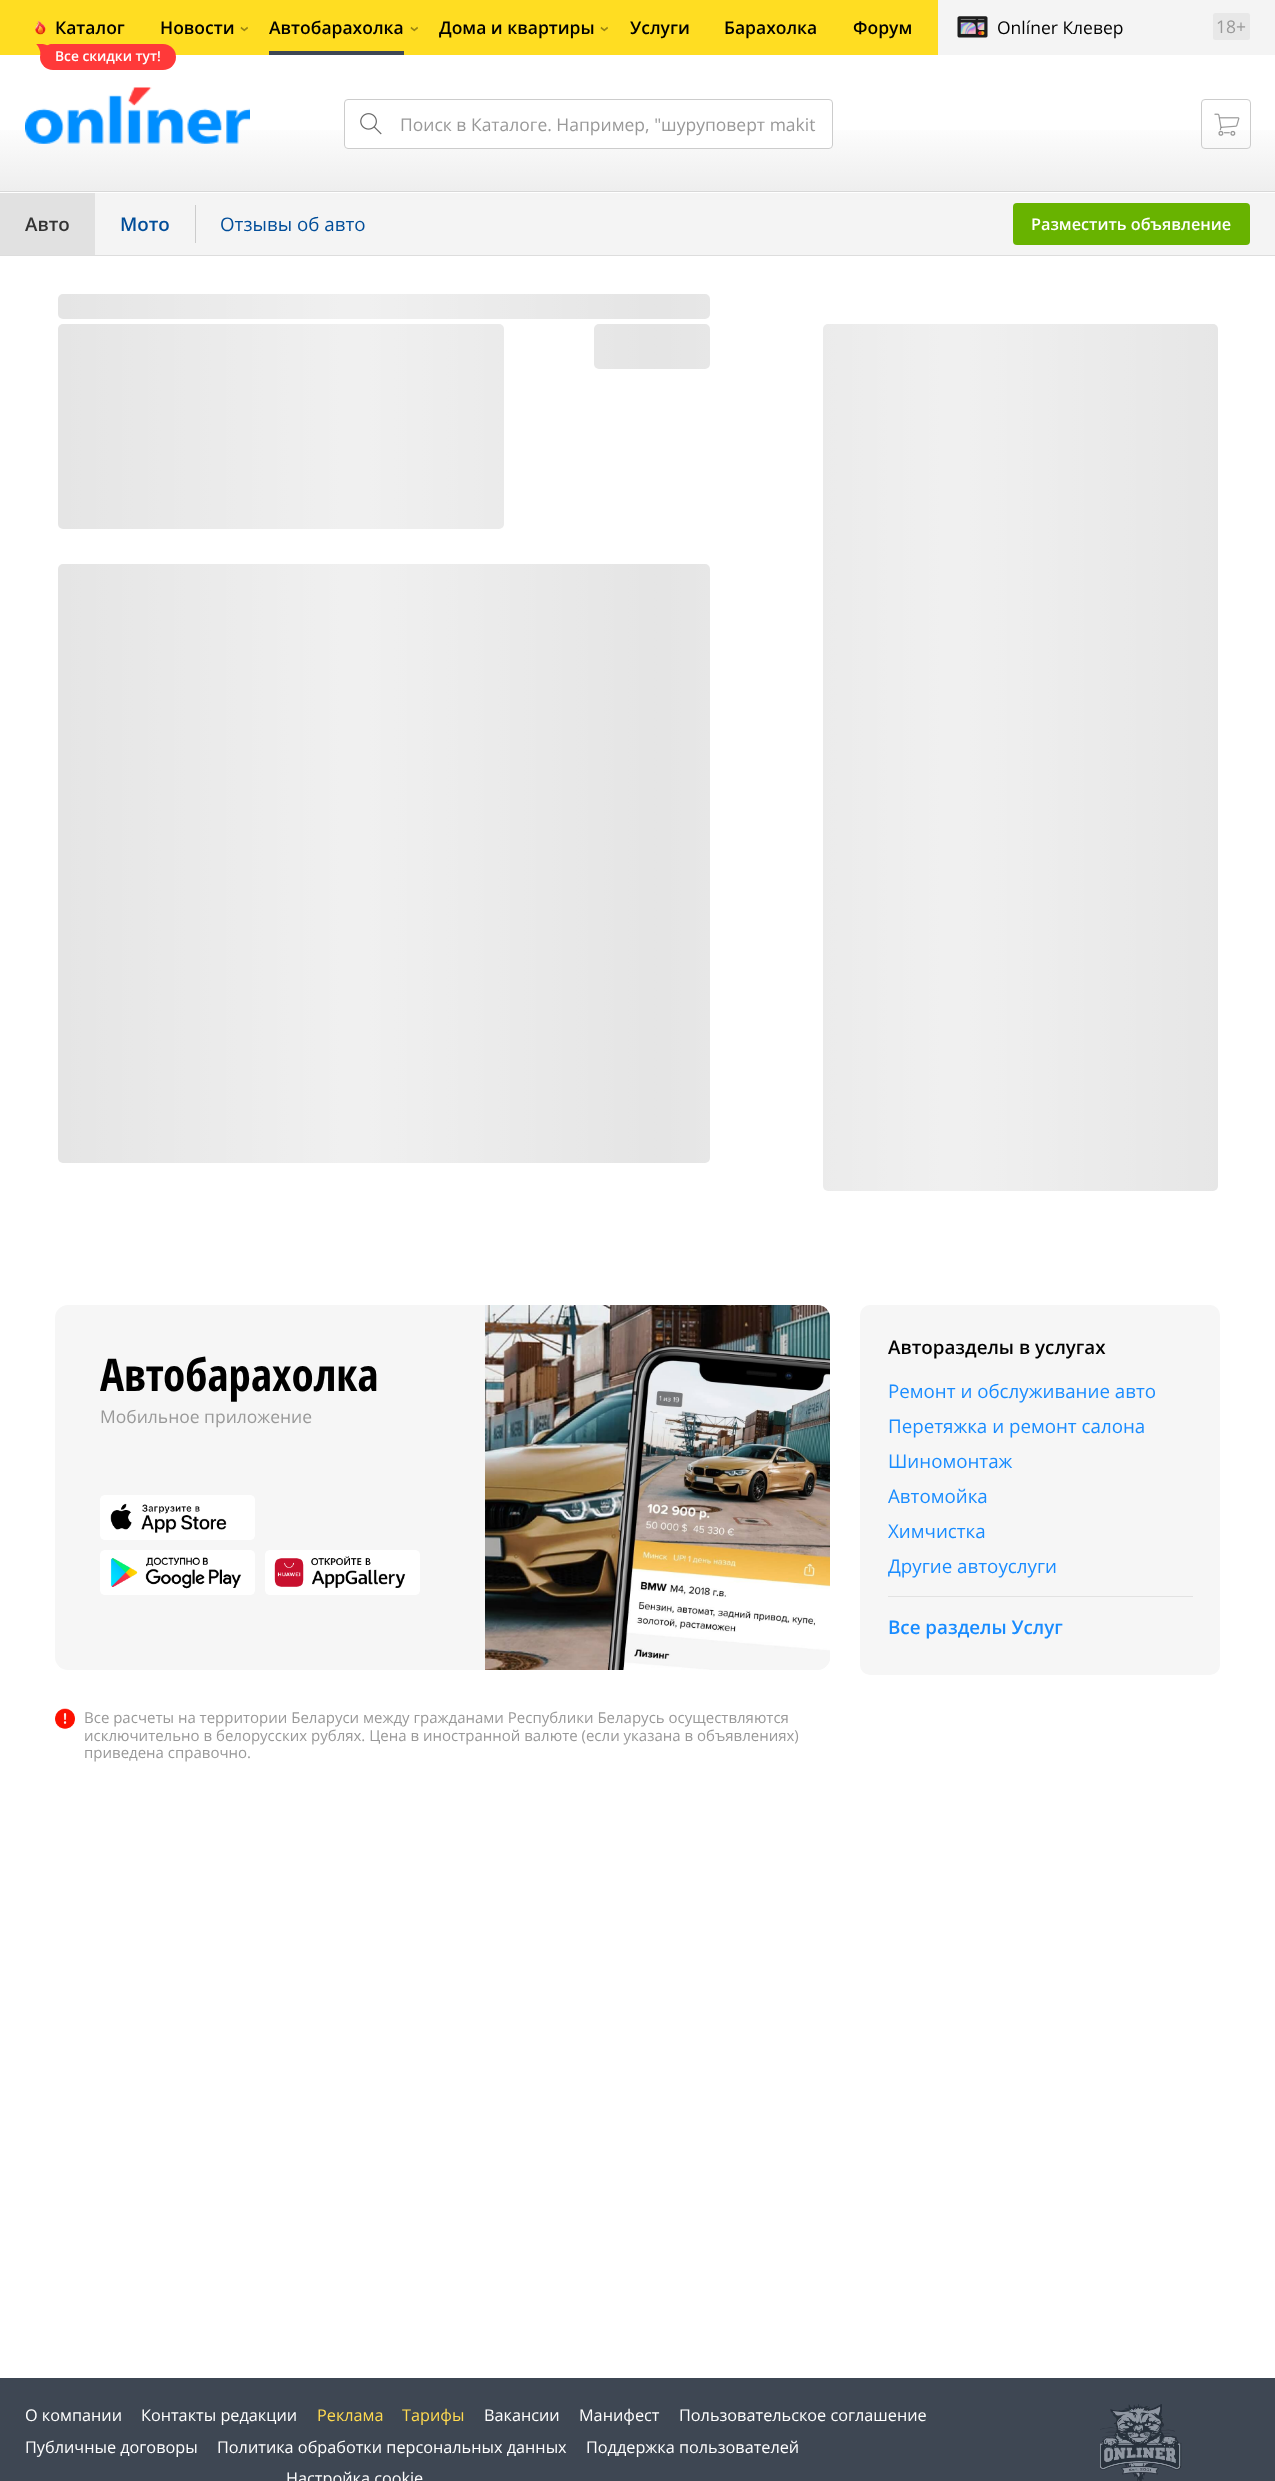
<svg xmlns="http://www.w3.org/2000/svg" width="1275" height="2481">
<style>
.a{font:600 17.5px Open Sans;fill:#000}
.b{font:600 13.75px Open Sans;fill:#fff}
.c{font:600 17.5px Open Sans;fill:#998514}
.d{font:17.5px Open Sans;fill:#000}
.e{font:17.5px Open Sans;fill:#999}
.f{font:600 18.75px Open Sans;fill:#333}
.g{font:600 18.75px Open Sans;fill:#004d99}
.h{font:18.75px Open Sans;fill:#004d99}
.i{font:600 16.25px Open Sans;fill:#fff}
.j{font:bold 45px Open Sans Condensed;fill:#000}
.k{font:15px Open Sans;fill:#999}
.l{font:600 18.75px Open Sans;fill:#000}
.m{font:18.75px Open Sans;fill:#198cff}
.n{font:600 18.75px Open Sans;fill:#198cff}
.o{font:16.25px Open Sans;fill:#fff}
.p{font:16.25px Open Sans;fill:#ffda50}
</style>
<defs>
<linearGradient id="g1" gradientUnits="userSpaceOnUse" x1="638" y1="0" x2="638" y2="238"><stop offset="0" stop-color="#fff"/><stop offset="0.5" stop-color="#fff"/><stop offset="1" stop-color="#e3e3e3"/></linearGradient>
<linearGradient id="g2" gradientUnits="userSpaceOnUse" x1="55" y1="770" x2="655" y2="770"><stop offset="0" stop-color="#fff" stop-opacity="0.1"/><stop offset="0.5" stop-color="#fff" stop-opacity="0.5"/><stop offset="1" stop-color="#fff" stop-opacity="0.1"/></linearGradient>
<linearGradient id="g3" gradientUnits="userSpaceOnUse" x1="655" y1="770" x2="1255" y2="770"><stop offset="0" stop-color="#fff" stop-opacity="0.1"/><stop offset="0.5" stop-color="#fff" stop-opacity="0.5"/><stop offset="1" stop-color="#fff" stop-opacity="0.1"/></linearGradient>
</defs>
<rect width="100%" height="100%" fill="#fff"/>
<path fill="url(#g1)" d="M0 130h1275v61H0z"/>
<path fill="#f4f4f4" d="M938 0h337v55H938z"/>
<path fill="#fd2" d="M0 0h938v55H0z"/>
<image href="1.png" x="35" y="20" width="11" height="15"/>
<rect fill="#ff3939" x="40" y="44" width="136" height="26" rx="13"/>
<image href="2.png" x="36" y="44" width="16" height="11"/>
<path fill="#3e4753" d="M269 51h135v4H269z"/>
<image href="3.png" x="957" y="16" width="31" height="22"/>
<rect fill="#e8e8e8" x="1213" y="13" width="37" height="27" rx="2.5"/>
<image href="4.png" x="25" y="87" width="225" height="57"/>
<rect fill="#fff" x="344" y="99" width="489" height="50" rx="4"/>
<image href="5.png" x="360" y="113" width="22" height="22"/>
<rect fill="none" stroke="#ccc" x="344.5" y="99.5" width="488" height="49" rx="3.5"/>
<rect fill="none" stroke="#ccc" x="1201.5" y="99.5" width="49" height="49" rx="3.5"/>
<image href="6.png" x="1214" y="113" width="26" height="23"/>
<path fill="#d8d8d8" d="M0 191h1275v1H0z"/>
<path fill="#f4f4f4" d="M95 193h1180v62H95z"/>
<path fill="#ddd" d="M0 255h1275v1H0z"/>
<path fill="#e1e1e1" d="M0 193h95v62H0z"/>
<path fill="#ccc" d="M195 205h1v38H195z"/>
<rect fill="#68b300" x="1013" y="203" width="237" height="42" rx="4"/>
<rect fill="#e2e2e2" x="58" y="294" width="652" height="25" rx="5"/>
<rect fill="#e2e2e2" x="58" y="324" width="446" height="205" rx="5"/>
<rect fill="#e2e2e2" x="594" y="324" width="116" height="45" rx="5"/>
<rect fill="#e2e2e2" x="823" y="324" width="395" height="867" rx="5"/>
<rect fill="#e2e2e2" x="58" y="564" width="652" height="599" rx="5"/>
<path fill="url(#g2)" d="M58 294h597v869H58z"/>
<path fill="url(#g3)" d="M655 294h563v897H655z"/>
<rect fill="#f6f6f6" x="55" y="1305" width="775" height="365" rx="13"/>
<image href="7.png" x="485" y="1305" width="345" height="365"/>
<image href="8.png" x="100" y="1495" width="155" height="45"/>
<image href="9.png" x="100" y="1550" width="155" height="45"/>
<image href="10.png" x="265" y="1550" width="155" height="45"/>
<image href="11.png" x="55" y="1708" width="20" height="21"/>
<rect fill="#f6f6f6" x="860" y="1305" width="360" height="370" rx="10"/>
<path fill="#e2e2e2" d="M888 1596h305v1H888z"/>
<path fill="#3e4753" d="M0 2378h1275v103H0z"/>
<image href="12.png" x="1100" y="2404" width="82" height="77"/>
<text class="a" x="55" y="34">Каталог</text>
<text class="b" x="55" y="61">Все скидки тут!</text>
<text class="a" x="160" y="34">Новости</text>
<text class="c" x="249" y="32" transform="rotate(-90 249 32)">‹</text>
<text class="a" x="269" y="34">Автобарахолка</text>
<text class="c" x="419" y="32" transform="rotate(-90 419 32)">‹</text>
<text class="a" x="439" y="34">Дома и квартиры</text>
<text class="c" x="609" y="32" transform="rotate(-90 609 32)">‹</text>
<text class="a" x="630" y="34">Услуги</text>
<text class="a" x="724" y="34">Барахолка</text>
<text class="a" x="853" y="34">Форум</text>
<text class="d" x="997" y="34">Onlíner Клевер</text>
<text class="e" x="1216" y="33">18+</text>
<text class="e" x="400" y="131">Поиск в Каталоге. Например, "шуруповерт makit</text>
<text class="f" x="25" y="231">Авто</text>
<text class="g" x="120" y="231">Мото</text>
<text class="h" x="220" y="231">Отзывы об авто</text>
<text class="i" x="1031" y="230">Разместить объявление</text>
<text class="j" x="100" y="1391">Автобарахолка</text>
<text class="e" x="100" y="1423">Мобильное приложение</text>
<text class="k" x="84" y="1723">Все расчеты на территории Беларуси между гражданами Республики Беларусь осуществляются</text>
<text class="k" x="84" y="1741">исключительно в белорусских рублях. Цена в иностранной валюте (если указана в объявлениях)</text>
<text class="k" x="84" y="1758">приведена справочно.</text>
<text class="l" x="888" y="1354">Авторазделы в услугах</text>
<text class="m" x="888" y="1398">Ремонт и обслуживание авто</text>
<text class="m" x="888" y="1433">Перетяжка и ремонт салона</text>
<text class="m" x="888" y="1468">Шиномонтаж</text>
<text class="m" x="888" y="1503">Автомойка</text>
<text class="m" x="888" y="1538">Химчистка</text>
<text class="m" x="888" y="1573">Другие автоуслуги</text>
<text class="n" x="888" y="1634">Все разделы Услуг</text>
<text class="o" x="25" y="2421">О компании</text>
<text class="o" x="141" y="2421">Контакты редакции</text>
<text class="p" x="317" y="2421">Реклама</text>
<text class="p" x="402" y="2421">Тарифы</text>
<text class="o" x="484" y="2421">Вакансии</text>
<text class="o" x="579" y="2421">Манифест</text>
<text class="o" x="679" y="2421">Пользовательское соглашение</text>
<text class="o" x="25" y="2453">Публичные договоры</text>
<text class="o" x="217" y="2453">Политика обработки персональных данных</text>
<text class="o" x="586" y="2453">Поддержка пользователей</text>
<text class="o" x="286" y="2484">Настройка cookie</text>
</svg>
